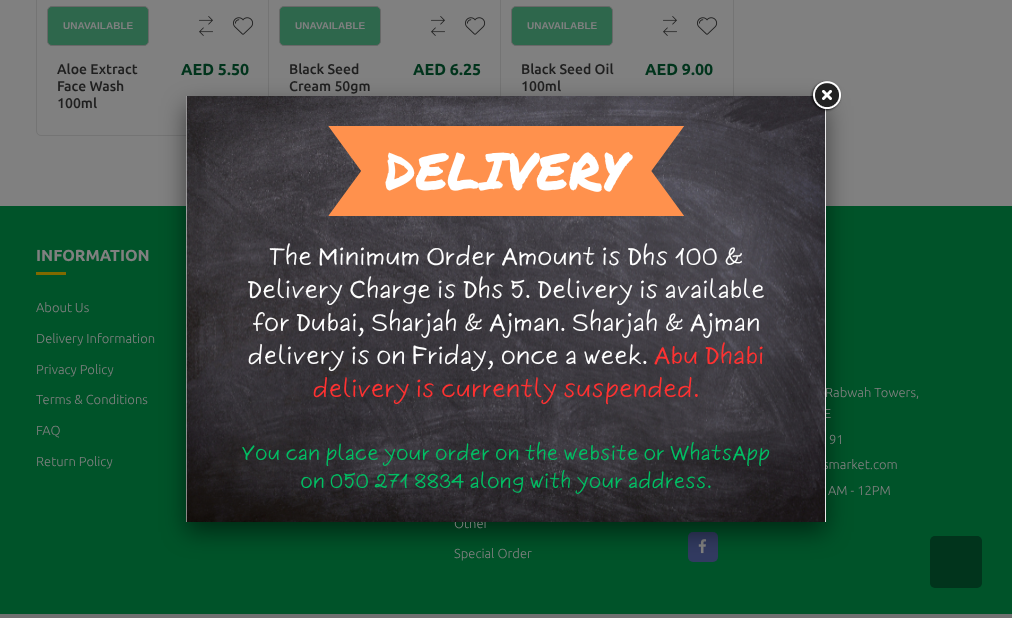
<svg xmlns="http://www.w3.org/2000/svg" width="1012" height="618">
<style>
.a{font:bold 10px Liberation Sans;fill:#808080}
.b{font:500 14px Ubuntu;fill:#1f1f1f}
.c{font:bold 16px Ubuntu;fill:#01341c}
.d{font:bold 16px Ubuntu;fill:#808080}
.e{font:300 13px Ubuntu;fill:#808080}
</style>
<defs>
<clipPath id="clip1"><path d="M37 0h696v135H37z"/></clipPath>
</defs>
<rect width="100%" height="100%" fill="#808080"/>
<rect fill="none" stroke="#747474" x="36.5" y="-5.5" width="697" height="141" rx="4.5"/>
<g clip-path="url(#clip1)">
<path fill="#808080" stroke="#747474" d="M41-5.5h228.5v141h-228.5c-2.5 0-4.5-2-4.5-4.5v-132c0-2.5 2-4.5 4.5-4.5z"/>
</g>
<rect fill="#2e674c" stroke="#686868" x="47.5" y="6.5" width="101" height="39" rx="4.5"/>
<image href="1.png" x="199" y="16" width="14" height="20"/>
<image href="2.png" x="233" y="17" width="21" height="18"/>
<path fill="#808080" d="M269 0h1v96H269z"/>
<path fill="none" stroke="#747474" d="M268.5 -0.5h233v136H268.5z"/>
<rect fill="#2e674c" stroke="#686868" x="279.5" y="6.5" width="101" height="39" rx="4.5"/>
<image href="1.png" x="431" y="16" width="14" height="20"/>
<image href="2.png" x="465" y="17" width="21" height="18"/>
<g clip-path="url(#clip1)">
<path fill="#808080" stroke="#747474" d="M500.5-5.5h228.5c2.5 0 4.5 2 4.5 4.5v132c0 2.5-2 4.5-4.5 4.5h-228.5z"/>
</g>
<rect fill="#2e674c" stroke="#686868" x="511.5" y="6.5" width="101" height="39" rx="4.5"/>
<image href="1.png" x="663" y="16" width="14" height="20"/>
<image href="2.png" x="697" y="17" width="21" height="18"/>
<path fill="#005329" d="M0 206h1012v408H0z"/>
<path fill="#806900" d="M36 272h30v3H36z"/>
<rect fill="#323b61" x="688" y="532" width="30" height="30" rx="5"/>
<image href="3.png" x="698" y="539" width="9" height="15"/>
<path fill="#707070" d="M0 614h1012v4H0z"/>
<rect fill="#01341c" x="930" y="536" width="52" height="52" rx="5"/>
<path fill="#00000080" filter="blur(12.5px)" d="M186 106h640v426H186z"/>
<text class="a" x="63" y="29">UNAVAILABLE</text>
<text class="b" x="57" y="74">Aloe Extract</text>
<text class="b" x="57" y="91">Face Wash</text>
<text class="b" x="57" y="108">100ml</text>
<text class="c" x="181" y="75">AED 5.50</text>
<text class="a" x="295" y="29">UNAVAILABLE</text>
<text class="b" x="289" y="74">Black Seed</text>
<text class="b" x="289" y="91">Cream 50gm</text>
<text class="c" x="413" y="75">AED 6.25</text>
<text class="a" x="527" y="29">UNAVAILABLE</text>
<text class="b" x="521" y="74">Black Seed Oil</text>
<text class="b" x="521" y="91">100ml</text>
<text class="c" x="645" y="75">AED 9.00</text>
<text class="d" x="36" y="261">INFORMATION</text>
<text class="e" x="36" y="312">About Us</text>
<text class="e" x="36" y="343">Delivery Information</text>
<text class="e" x="36" y="374">Privacy Policy</text>
<text class="e" x="36" y="404">Terms &amp; Conditions</text>
<text class="e" x="36" y="435">FAQ</text>
<text class="e" x="36" y="466">Return Policy</text>
<text class="e" x="454" y="528">Other</text>
<text class="e" x="454" y="558">Special Order</text>
<text class="e" x="825" y="397">Rabwah Towers,</text>
<text class="e" x="824" y="418">E</text>
<text class="e" x="829" y="444">91</text>
<text class="e" x="823" y="469">smarket.com</text>
<text class="e" x="828" y="495">AM - 12PM</text>
<image href="5.png" x="186" y="96" width="640" height="426"/>
<image href="4.png" x="810" y="80" width="32" height="32"/>
</svg>
